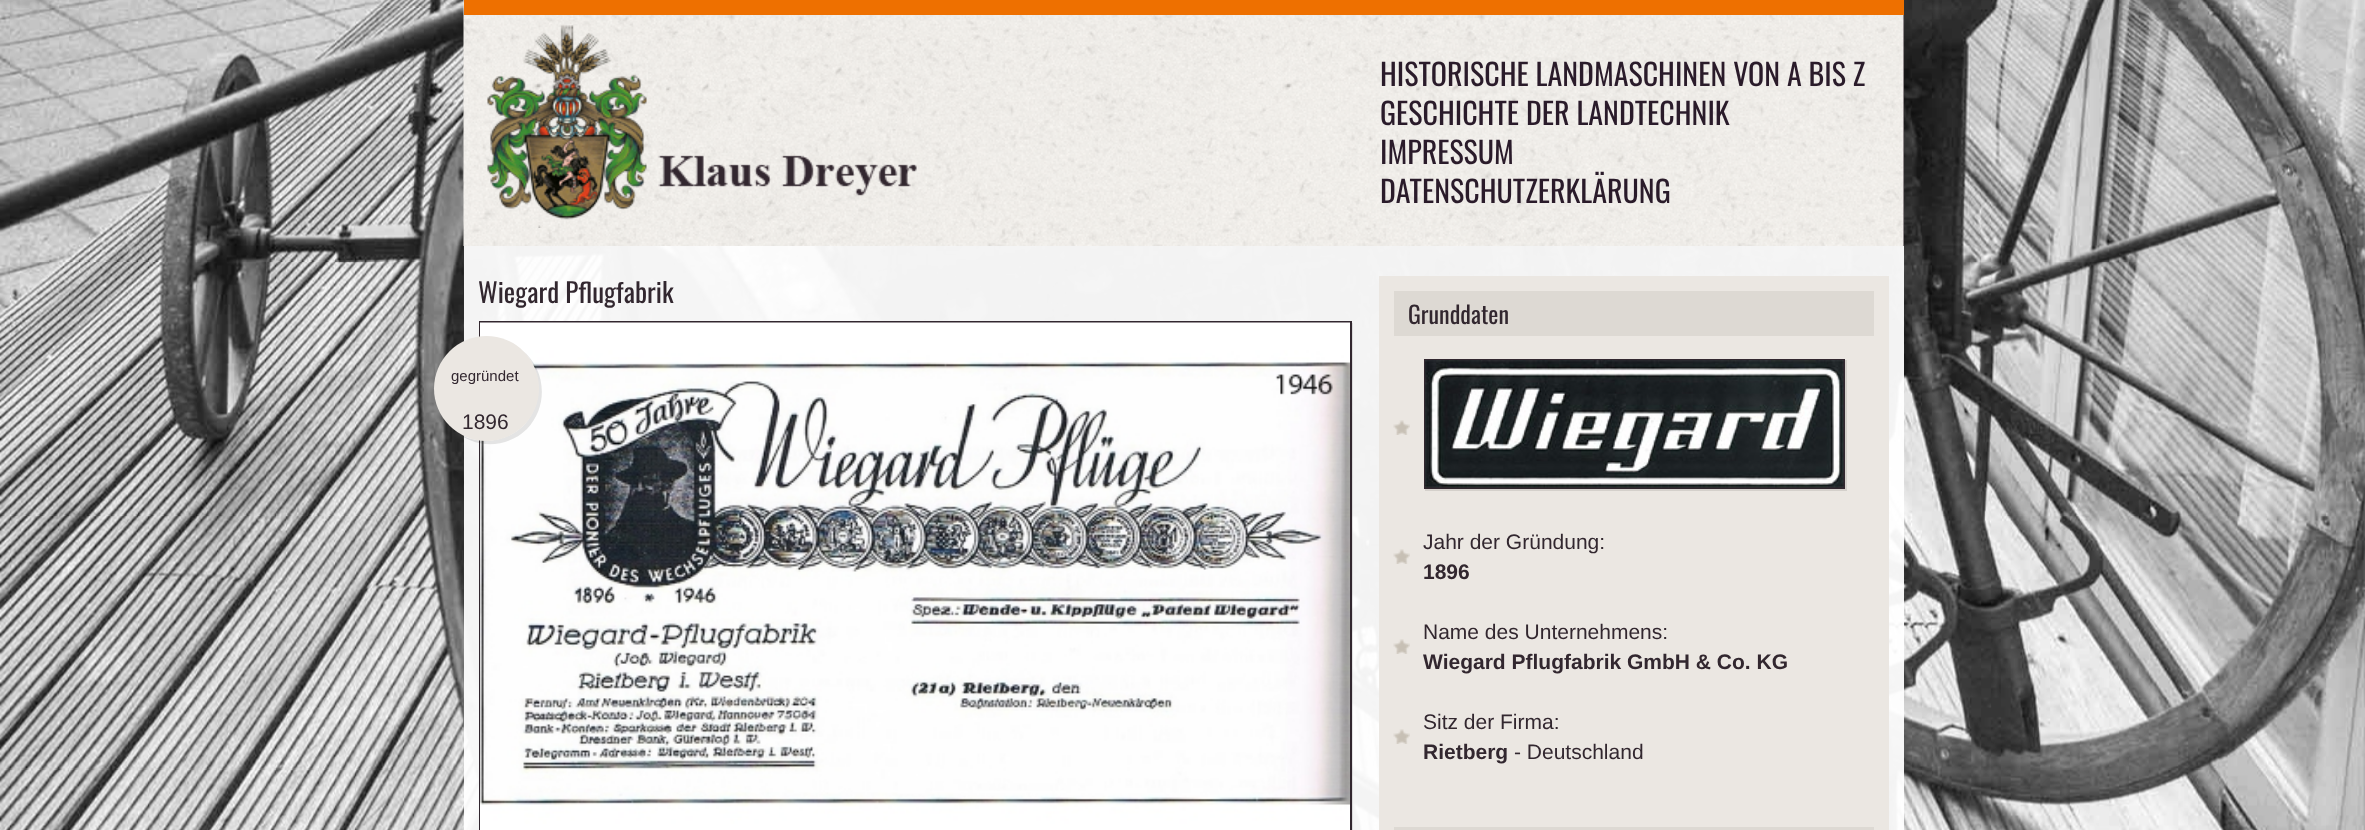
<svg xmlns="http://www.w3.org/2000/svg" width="2365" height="830">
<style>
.a{font:30px Oswald;fill:#2a1b2a}
.b{font:27px Oswald;fill:#32272f}
.c{font:15px Liberation Sans;fill:#32272f}
.d{font:21px Liberation Sans;fill:#32272f}
.e{font:24px Oswald;fill:#32272f}
.f{font:bold 21px Liberation Sans;fill:#32272f}
</style>
<rect width="100%" height="100%" fill="#fff"/>
<image href="1.png" x="0" y="0" width="2365" height="830"/>
<image href="1.png" x="0" y="0" width="2365" height="830"/>
<path fill="#32272f" d="M1903 15h1v231H1903z"/>
<image href="2.png" x="463" y="0" width="1441" height="246"/>
<path fill="#ee7000" d="M464 0h1440v15H464z"/>
<image href="3.png" x="487" y="25" width="430" height="203"/>
<path fill="#fffffff2" d="M464 246h1440v584H464z"/>
<path fill="none" stroke="#32272f" stroke-width="2" d="M480 322h871v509H480z"/>
<image href="4.png" x="480" y="322" width="870" height="508"/>
<path fill="#0000001a" d="M480 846v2h873v-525h-1v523z"/>
<path fill="#0000001a" d="M454 430c20 19 53 19 73-1c22-23 19-60-5-79c21 20 22 55 1 76c-19 18-49 20-69 4z"/>
<circle fill="#ebe7e2" cx="486.5" cy="388.5" r="52.5"/>
<path fill="#ebe7e2" d="M1379 276h510v554H1379z"/>
<path fill="#ddd9d3" d="M1394 291h480v45H1394z"/>
<image href="5.png" x="1393" y="420" width="17" height="15"/>
<path fill="#d4d0cb" d="M1425 489v2h422v-131h-2v129z"/>
<path fill="none" stroke="#32272f" stroke-width="2" d="M1425 360h419v128H1425z"/>
<image href="6.png" x="1425" y="360" width="419" height="128"/>
<image href="5.png" x="1393" y="549" width="17" height="15"/>
<image href="5.png" x="1393" y="639" width="17" height="15"/>
<image href="5.png" x="1393" y="729" width="17" height="15"/>
<path fill="#ddd9d3" d="M1394 827h480v3H1394z"/>
<text class="a" x="1380" y="86">HISTORISCHE LANDMASCHINEN VON A BIS Z</text>
<text class="a" x="1380" y="125">GESCHICHTE DER LANDTECHNIK</text>
<text class="a" x="1380" y="164">IMPRESSUM</text>
<text class="a" x="1380" y="203">DATENSCHUTZERKLÄRUNG</text>
<text class="b" x="478" y="303">Wiegard Pflugfabrik</text>
<text class="c" x="451" y="381">gegründet</text>
<text class="d" x="462" y="429">1896</text>
<text class="e" x="1408" y="324">Grunddaten</text>
<text class="d" x="1423" y="549">Jahr der Gründung:</text>
<text class="f" x="1423" y="579">1896</text>
<text class="d" x="1423" y="639">Name des Unternehmens:</text>
<text class="f" x="1423" y="669">Wiegard Pflugfabrik GmbH &amp; Co. KG</text>
<text class="d" x="1423" y="729">Sitz der Firma:</text>
<text class="f" x="1423" y="759">Rietberg</text>
<text class="d" x="1514" y="759">- Deutschland</text>
</svg>
